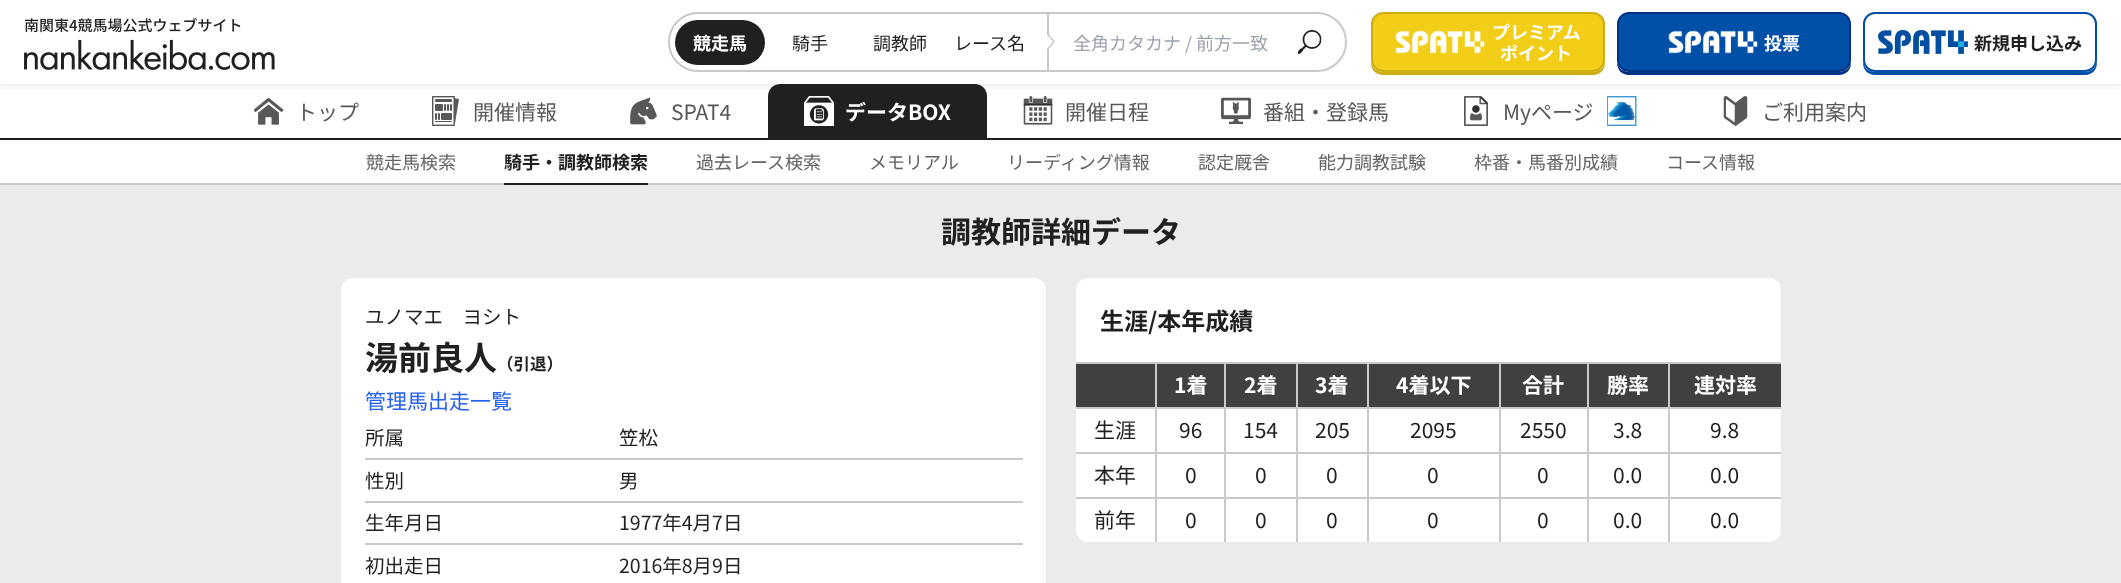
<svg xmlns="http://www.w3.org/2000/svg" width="2121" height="583">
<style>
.a{font:bold 18px Noto Sans JP;fill:#fff}
.b{font:18px Noto Sans JP;fill:#221f1f}
.c{font:18px Noto Sans JP;fill:#9ca3af}
.d{font:bold 18px Noto Sans JP;fill:#221f1f}
.e{font:21px Noto Sans JP;fill:#595757}
.f{font:bold 21px Noto Sans JP;fill:#fff}
.g{font:18px Noto Sans JP;fill:#646262}
.h{font:bold 30px Noto Sans JP;fill:#221f1f}
.i{font:19.5px Noto Sans JP;fill:#221f1f}
.j{font:bold 33px Noto Sans JP;fill:#221f1f}
.k{font:bold 16.5px Noto Sans JP;fill:#221f1f}
.l{font:21px Noto Sans JP;fill:#2461ee}
.m{font:bold 24px Noto Sans JP;fill:#221f1f}
.n{font:21px Noto Sans JP;fill:#221f1f}
</style>
<defs>
<clipPath id="clip1"><path d="M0 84h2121v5H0z"/></clipPath>
<clipPath id="clip2"><path d="M1046 33h9v18H1046z"/></clipPath>
</defs>
<rect width="100%" height="100%" fill="#ebebeb"/>
<path fill="#fff" d="M0 0h2121v183H0z"/>
<g clip-path="url(#clip1)">
<path fill="#221f1f1a" filter="blur(3px)" d="M0 2h2121v84H0z"/>
</g>
<image href="1.png" x="24" y="18" width="251" height="52"/>
<rect fill="none" stroke="#c9c9c9" stroke-width="2" x="669" y="13" width="677" height="58" rx="29"/>
<path fill="#c9c9c9" d="M1047 14h2v57H1047z"/>
<rect fill="#221f1f" x="675" y="20" width="90" height="45" rx="22.5"/>
<g clip-path="url(#clip2)">
<path fill="#fff" d="M1046.5 34l7.5 7.5l-8.5 9"/>
</g>
<path fill="none" stroke="#c9c9c9" stroke-width="1.5" stroke-linecap="round" stroke-linejoin="round" d="M1048 34.5l6 7l-6 7.5"/>
<image href="2.png" x="1298" y="30" width="24" height="24"/>
<path fill="#ccad14" d="M1371 60v3c0 7 5 12 12 12h210c7 0 12-5 12-12v-3c0 7-5 12-12 12h-210c-7 0-12-5-12-12z"/>
<rect fill="#f2ce18" stroke="#ccad14" stroke-width="2" x="1372" y="13" width="232" height="58" rx="11"/>
<image href="3.png" x="1395" y="30" width="90" height="24"/>
<path fill="#003285" d="M1617 60v3c0 7 5 12 12 12h210c7 0 12-5 12-12v-3c0 7-5 12-12 12h-210c-7 0-12-5-12-12z"/>
<rect fill="#0050a8" stroke="#003285" stroke-width="2" x="1618" y="13" width="232" height="58" rx="11"/>
<image href="4.png" x="1668" y="30" width="90" height="24"/>
<path fill="#0050a8" d="M1863 60v3c0 7 5 12 12 12h210c7 0 12-5 12-12v-3c0 7-5 12-12 12h-210c-7 0-12-5-12-12z"/>
<rect fill="#fff" stroke="#0050a8" stroke-width="2" x="1864" y="13" width="232" height="58" rx="11"/>
<image href="5.png" x="1878" y="30" width="90" height="24"/>
<path fill="#221f1f" d="M0 138h2121v2H0z"/>
<image href="6.png" x="254" y="97" width="30" height="28"/>
<image href="7.png" x="432" y="96" width="27" height="30"/>
<image href="8.png" x="630" y="97" width="27" height="28"/>
<path fill="#221f1f" d="M780 84h195c6.5 0 12 5.5 12 12v42h-219v-42c0-6.5 5.5-12 12-12z"/>
<image href="9.png" x="804" y="96" width="30" height="30"/>
<image href="10.png" x="1023" y="96" width="30" height="29"/>
<image href="11.png" x="1221" y="97" width="30" height="28"/>
<image href="12.png" x="1464" y="96" width="24" height="30"/>
<image href="13.png" x="1607" y="96" width="30" height="30"/>
<image href="14.png" x="1723" y="96" width="25" height="30"/>
<path fill="#c9c9c9" d="M0 183h2121v2H0z"/>
<path fill="#221f1f" d="M504 183h144v2H504z"/>
<rect fill="#fff" x="341" y="278" width="705" height="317" rx="12"/>
<path fill="#c9c9c9" d="M365 458h658v2H365z"/>
<path fill="#c9c9c9" d="M365 501h658v2H365z"/>
<path fill="#c9c9c9" d="M365 543h658v2H365z"/>
<path fill="#fff" d="M1088 278h681c6.5 0 12 5.5 12 12v72h-705v-72c0-6.5 5.5-12 12-12z"/>
<path fill="#fff" d="M1076 362h705v168c0 6.5-5.5 12-12 12h-681c-6.5 0-12-5.5-12-12z"/>
<path fill="#404040" d="M1076 364h79v43H1076z"/>
<path fill="#c9c9c9" d="M1668 362h113v2H1668z"/>
<path fill="#c9c9c9" d="M1668 407h113v2H1668z"/>
<path fill="#c9c9c9" d="M1668 452h113v2H1668z"/>
<path fill="#c9c9c9" d="M1668 497h113v2H1668z"/>
<path fill="#c9c9c9" d="M1668 497h2v45H1668z"/>
<path fill="#c9c9c9" d="M1587 497h83v2H1587z"/>
<path fill="#c9c9c9" d="M1668 452h2v46H1668z"/>
<path fill="#c9c9c9" d="M1587 452h83v2H1587z"/>
<path fill="#c9c9c9" d="M1668 407h2v46H1668z"/>
<path fill="#c9c9c9" d="M1587 407h83v2H1587z"/>
<path fill="#c9c9c9" d="M1668 362h2v46H1668z"/>
<path fill="#c9c9c9" d="M1587 362h83v2H1587z"/>
<path fill="#c9c9c9" d="M1587 497h2v45H1587z"/>
<path fill="#c9c9c9" d="M1499 497h90v2H1499z"/>
<path fill="#c9c9c9" d="M1587 452h2v46H1587z"/>
<path fill="#c9c9c9" d="M1499 452h90v2H1499z"/>
<path fill="#c9c9c9" d="M1587 407h2v46H1587z"/>
<path fill="#c9c9c9" d="M1499 407h90v2H1499z"/>
<path fill="#c9c9c9" d="M1587 362h2v46H1587z"/>
<path fill="#c9c9c9" d="M1499 362h90v2H1499z"/>
<path fill="#c9c9c9" d="M1499 497h2v45H1499z"/>
<path fill="#c9c9c9" d="M1367 497h133v2H1367z"/>
<path fill="#c9c9c9" d="M1499 452h2v46H1499z"/>
<path fill="#c9c9c9" d="M1367 452h133v2H1367z"/>
<path fill="#c9c9c9" d="M1499 407h2v46H1499z"/>
<path fill="#c9c9c9" d="M1367 407h133v2H1367z"/>
<path fill="#c9c9c9" d="M1499 362h2v46H1499z"/>
<path fill="#c9c9c9" d="M1367 362h133v2H1367z"/>
<path fill="#c9c9c9" d="M1367 497h2v45H1367z"/>
<path fill="#c9c9c9" d="M1296 497h72v2H1296z"/>
<path fill="#c9c9c9" d="M1367 452h2v46H1367z"/>
<path fill="#c9c9c9" d="M1296 452h72v2H1296z"/>
<path fill="#c9c9c9" d="M1367 407h2v46H1367z"/>
<path fill="#c9c9c9" d="M1296 407h72v2H1296z"/>
<path fill="#c9c9c9" d="M1367 362h2v46H1367z"/>
<path fill="#c9c9c9" d="M1296 362h72v2H1296z"/>
<path fill="#c9c9c9" d="M1296 497h2v45H1296z"/>
<path fill="#c9c9c9" d="M1224 497h74v2H1224z"/>
<path fill="#c9c9c9" d="M1296 452h2v46H1296z"/>
<path fill="#c9c9c9" d="M1224 452h74v2H1224z"/>
<path fill="#c9c9c9" d="M1296 407h2v46H1296z"/>
<path fill="#c9c9c9" d="M1224 407h74v2H1224z"/>
<path fill="#c9c9c9" d="M1296 362h2v46H1296z"/>
<path fill="#c9c9c9" d="M1224 362h74v2H1224z"/>
<path fill="#c9c9c9" d="M1224 497h2v45H1224z"/>
<path fill="#c9c9c9" d="M1155 497h71v2H1155z"/>
<path fill="#c9c9c9" d="M1224 452h2v46H1224z"/>
<path fill="#c9c9c9" d="M1155 452h71v2H1155z"/>
<path fill="#c9c9c9" d="M1224 407h2v46H1224z"/>
<path fill="#c9c9c9" d="M1155 407h71v2H1155z"/>
<path fill="#c9c9c9" d="M1224 362h2v46H1224z"/>
<path fill="#c9c9c9" d="M1155 362h71v2H1155z"/>
<path fill="#c9c9c9" d="M1155 497h2v45H1155z"/>
<path fill="#c9c9c9" d="M1076 497h81v2H1076z"/>
<path fill="#c9c9c9" d="M1155 452h2v46H1155z"/>
<path fill="#c9c9c9" d="M1076 452h81v2H1076z"/>
<path fill="#c9c9c9" d="M1155 407h2v46H1155z"/>
<path fill="#c9c9c9" d="M1076 407h81v2H1076z"/>
<path fill="#c9c9c9" d="M1155 362h2v46H1155z"/>
<path fill="#c9c9c9" d="M1076 362h81v2H1076z"/>
<path fill="#404040" d="M1157 364h67v43H1157z"/>
<path fill="#404040" d="M1226 364h70v43H1226z"/>
<path fill="#404040" d="M1298 364h69v43H1298z"/>
<path fill="#404040" d="M1369 364h130v43H1369z"/>
<path fill="#404040" d="M1501 364h86v43H1501z"/>
<path fill="#404040" d="M1589 364h79v43H1589z"/>
<path fill="#404040" d="M1670 364h111v43H1670z"/>
<text class="a" x="693" y="50">競走馬</text>
<text class="b" x="792" y="50">騎手</text>
<text class="b" x="873" y="50">調教師</text>
<text class="b" x="954" y="50">レース名</text>
<text class="c" x="1073" y="50">全角カタカナ / 前方一致</text>
<text class="a" x="1492" y="39">プレミアム</text>
<text class="a" x="1500" y="60">ポイント</text>
<text class="a" x="1764" y="50">投票</text>
<text class="d" x="1974" y="50">新規申し込み</text>
<text class="e" x="296" y="120">トップ</text>
<text class="e" x="473" y="120">開催情報</text>
<text class="e" x="671" y="120">SPAT4</text>
<text class="f" x="845" y="120">データBOX</text>
<text class="e" x="1065" y="120">開催日程</text>
<text class="e" x="1263" y="120">番組・登録馬</text>
<text class="e" x="1503" y="120">Myページ</text>
<text class="e" x="1762" y="120">ご利用案内</text>
<text class="g" x="366" y="169">競走馬検索</text>
<text class="d" x="504" y="169">騎手・調教師検索</text>
<text class="g" x="696" y="169">過去レース検索</text>
<text class="g" x="869" y="169">メモリアル</text>
<text class="g" x="1007" y="169">リーディング情報</text>
<text class="g" x="1198" y="169">認定厩舎</text>
<text class="g" x="1318" y="169">能力調教試験</text>
<text class="g" x="1474" y="169">枠番・馬番別成績</text>
<text class="g" x="1666" y="169">コース情報</text>
<text class="h" x="941" y="243">調教師詳細データ</text>
<text class="i" x="365" y="324">ユノマエ　ヨシト</text>
<text class="j" x="365" y="370">湯前良人</text>
<text class="k" x="497" y="370">（引退）</text>
<text class="l" x="365" y="409">管理馬出走一覧</text>
<text class="i" x="365" y="445">所属</text>
<text class="i" x="619" y="445">笠松</text>
<text class="i" x="365" y="488">性別</text>
<text class="i" x="619" y="488">男</text>
<text class="i" x="365" y="530">生年月日</text>
<text class="i" x="619" y="530">1977年4月7日</text>
<text class="i" x="365" y="573">初出走日</text>
<text class="i" x="619" y="573">2016年8月9日</text>
<text class="m" x="1100" y="330">生涯/本年成績</text>
<text class="f" x="1174" y="393">1着</text>
<text class="f" x="1244" y="393">2着</text>
<text class="f" x="1315" y="393">3着</text>
<text class="f" x="1396" y="393">4着以下</text>
<text class="f" x="1522" y="393">合計</text>
<text class="f" x="1607" y="393">勝率</text>
<text class="f" x="1694" y="393">連対率</text>
<text class="n" x="1094" y="438">生涯</text>
<text class="n" x="1179" y="438">96</text>
<text class="n" x="1243" y="438">154</text>
<text class="n" x="1315" y="438">205</text>
<text class="n" x="1410" y="438">2095</text>
<text class="n" x="1520" y="438">2550</text>
<text class="n" x="1613" y="438">3.8</text>
<text class="n" x="1710" y="438">9.8</text>
<text class="n" x="1094" y="483">本年</text>
<text class="n" x="1185" y="483">0</text>
<text class="n" x="1255" y="483">0</text>
<text class="n" x="1326" y="483">0</text>
<text class="n" x="1427" y="483">0</text>
<text class="n" x="1537" y="483">0</text>
<text class="n" x="1613" y="483">0.0</text>
<text class="n" x="1710" y="483">0.0</text>
<text class="n" x="1094" y="528">前年</text>
<text class="n" x="1185" y="528">0</text>
<text class="n" x="1255" y="528">0</text>
<text class="n" x="1326" y="528">0</text>
<text class="n" x="1427" y="528">0</text>
<text class="n" x="1537" y="528">0</text>
<text class="n" x="1613" y="528">0.0</text>
<text class="n" x="1710" y="528">0.0</text>
</svg>
